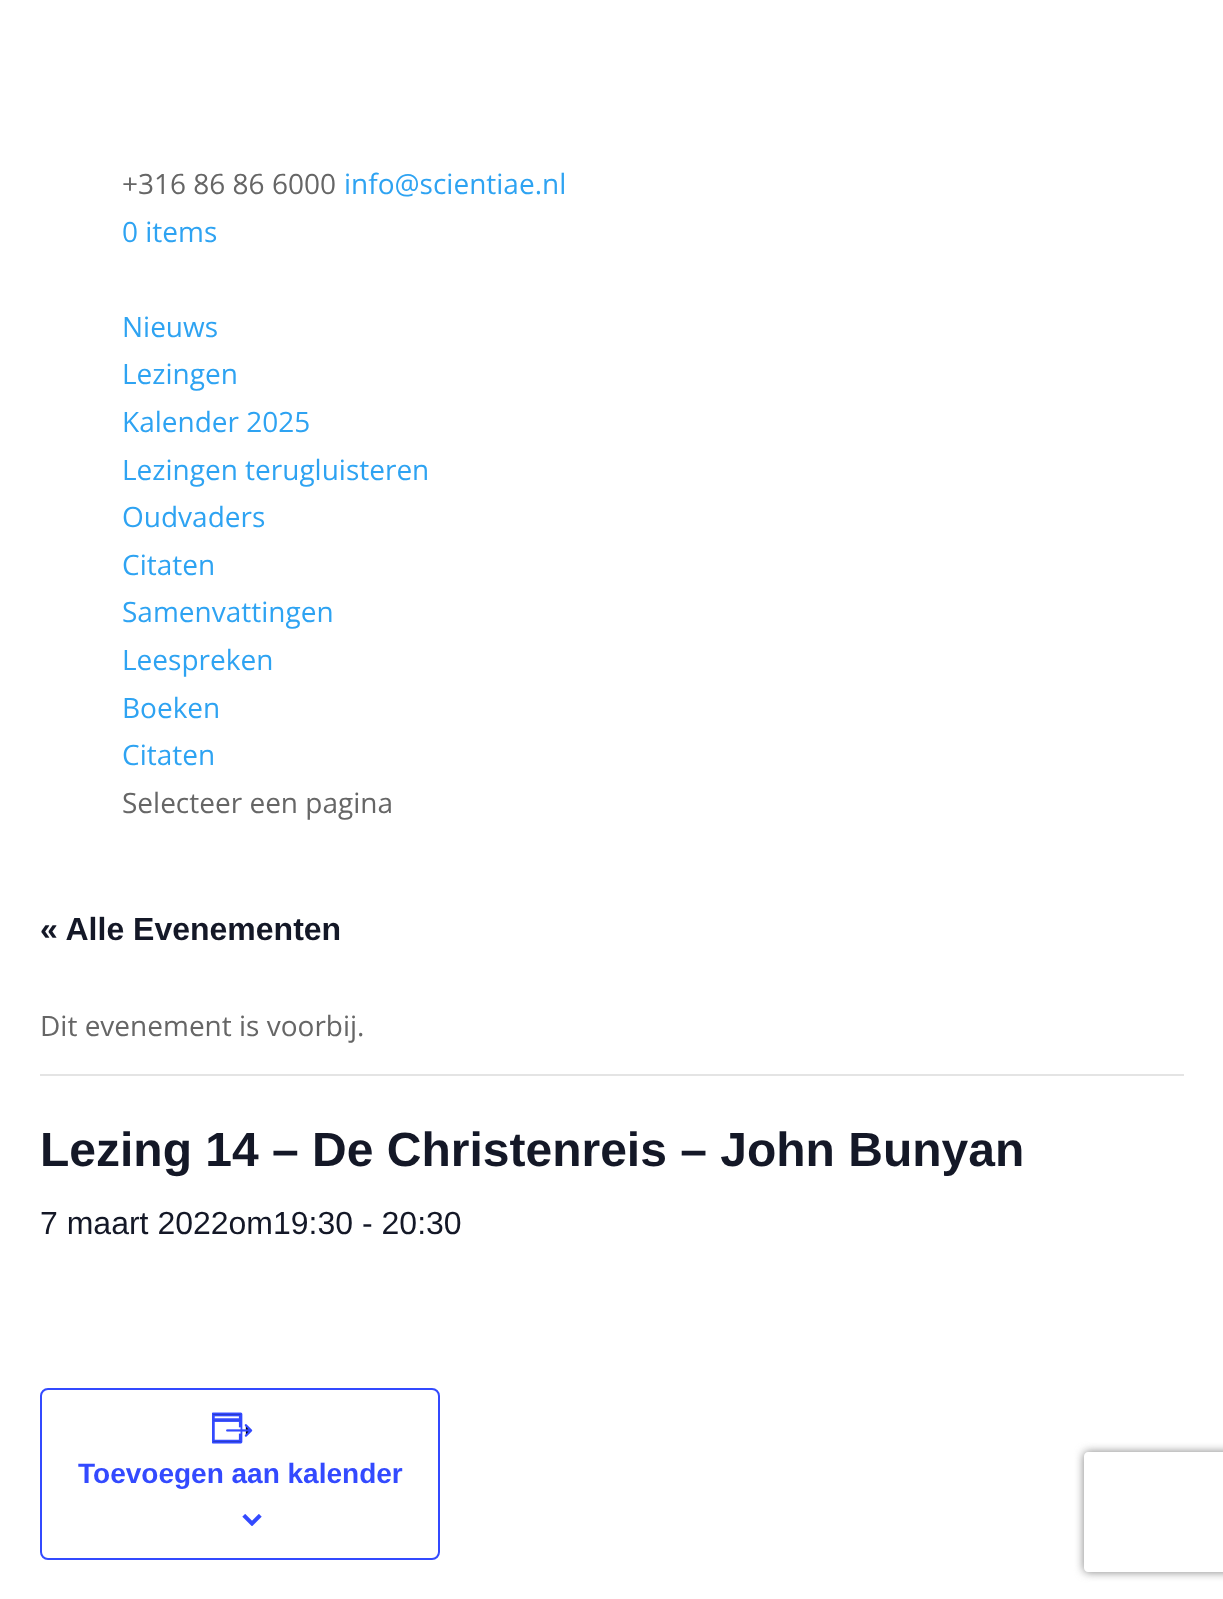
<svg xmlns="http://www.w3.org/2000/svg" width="1223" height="1599">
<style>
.a{font:28px Open Sans;fill:#666}
.b{font:28px Open Sans;fill:#2ea3f2}
.c{font:bold 32px Liberation Sans;fill:#141827}
.d{font:bold 48px Liberation Sans;fill:#141827}
.e{font:32px Liberation Sans;fill:#141827}
.f{font:bold 28px Liberation Sans;fill:#334aff}
</style>
<defs>
<clipPath id="clip1"><path d="M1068 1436h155v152h-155zm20 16h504c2 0 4 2 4 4v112c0 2-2 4-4 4h-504c-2 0-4-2-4-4v-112c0-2 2-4 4-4z" clip-rule="evenodd"/></clipPath>
</defs>
<rect width="100%" height="100%" fill="#fff"/>
<path fill="#e4e4e4" d="M40 1074h1144v2H40z"/>
<rect fill="none" stroke="#334aff" stroke-width="2" x="41" y="1389" width="398" height="170" rx="7"/>
<image href="1.png" x="212" y="1412" width="41" height="32"/>
<image href="2.png" x="242" y="1514" width="20" height="12"/>
<g clip-path="url(#clip1)">
<rect fill="#808080" filter="blur(5px)" x="1084" y="1452" width="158" height="120" rx="4"/>
</g>
<text class="a" x="122" y="194">+316 86 86 6000</text>
<text class="b" x="344" y="194">info@scientiae.nl</text>
<text class="b" x="122" y="242">0 items</text>
<text class="b" x="122" y="337">Nieuws</text>
<text class="b" x="122" y="384">Lezingen</text>
<text class="b" x="122" y="432">Kalender 2025</text>
<text class="b" x="122" y="480">Lezingen terugluisteren</text>
<text class="b" x="122" y="527">Oudvaders</text>
<text class="b" x="122" y="575">Citaten</text>
<text class="b" x="122" y="622">Samenvattingen</text>
<text class="b" x="122" y="670">Leespreken</text>
<text class="b" x="122" y="718">Boeken</text>
<text class="b" x="122" y="765">Citaten</text>
<text class="a" x="122" y="813">Selecteer een pagina</text>
<text class="c" x="40" y="940">« Alle Evenementen</text>
<text class="a" x="40" y="1036">Dit evenement is voorbij.</text>
<text class="d" x="40" y="1166">Lezing 14 – De Christenreis – John Bunyan</text>
<text class="e" x="40" y="1234">7 maart 2022om19:30 - 20:30</text>
<text class="f" x="78" y="1483">Toevoegen aan kalender</text>
</svg>
